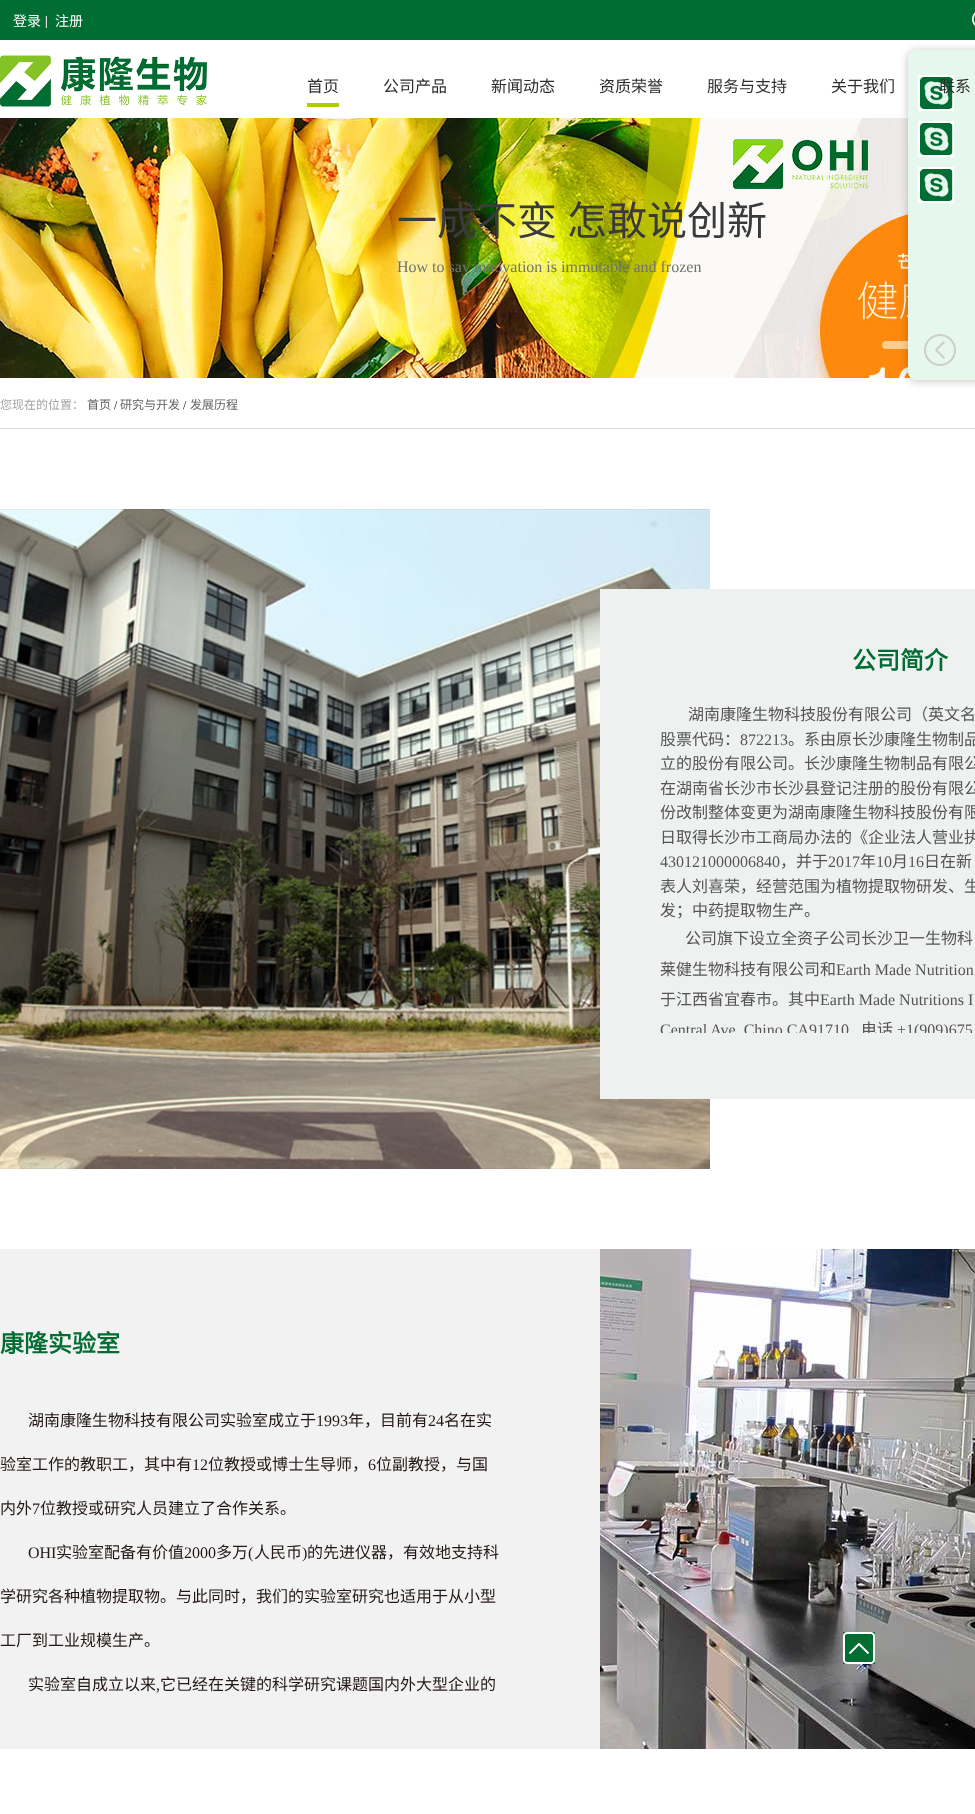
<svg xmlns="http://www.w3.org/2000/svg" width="975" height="1814">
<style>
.a{font:14px Noto Sans CJK SC;fill:#fff}
.b{font:16px Noto Sans CJK SC;fill:#2d2d2d}
.c{font:40px Noto Sans CJK SC;fill:#3a3a3a}
.d{font:16px Liberation Serif;fill:#727272}
.e{font:12px Noto Sans CJK SC;fill:#a4a4a4}
.f{font:12px Noto Sans CJK SC;fill:#626262}
.g{font:12px Liberation Serif;fill:#000}
.h{font:bold 24px Noto Sans CJK SC;fill:#006d32}
.i{font:16px Noto Sans CJK SC;fill:#555}
.j{font:16px Liberation Serif;fill:#555}
.k{font:16px Noto Sans CJK SC;fill:#231815}
.l{font:16px Liberation Serif;fill:#231815}
</style>
<defs>
<clipPath id="clip1"><path d="M660 703h315v330H660z"/></clipPath>
</defs>
<rect width="100%" height="100%" fill="#fff"/>
<image href="4.png" x="0" y="118" width="911" height="260"/>
<rect fill="#0000003d" filter="blur(4px)" x="908" y="51" width="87" height="330" rx="8"/>
<path fill="#006d32" d="M0 0h975v40H0z"/>
<image href="1.png" x="45" y="16" width="2" height="12"/>
<image href="2.png" x="972" y="12" width="3" height="14"/>
<image href="3.png" x="0" y="55" width="207" height="52"/>
<path fill="#aacd05" d="M307 103h32v4H307z"/>
<rect fill="#e6f7ee" x="908" y="50" width="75" height="330" rx="8"/>
<image href="5.png" x="918" y="75" width="37" height="36"/>
<image href="5.png" x="918" y="121" width="37" height="36"/>
<image href="5.png" x="918" y="167" width="37" height="36"/>
<image href="6.png" x="924" y="334" width="32" height="32"/>
<path fill="#dbdbdb" d="M0 428h975v1H0z"/>
<image href="7.png" x="0" y="509" width="710" height="660"/>
<path fill="#eff1f0" d="M600 589h375v510H600z"/>
<path fill="#f2f2f2" d="M0 1249h600v500H0z"/>
<image href="8.png" x="600" y="1249" width="375" height="500"/>
<path fill="#006d32" d="M843 1632h32v32H843z"/>
<image href="9.png" x="843" y="1632" width="32" height="32"/>
<text class="a" x="13" y="26">登录</text>
<text class="a" x="55" y="26">注册</text>
<text class="b" x="307" y="92">首页</text>
<text class="b" x="383" y="92">公司产品</text>
<text class="b" x="491" y="92">新闻动态</text>
<text class="b" x="599" y="92">资质荣誉</text>
<text class="b" x="707" y="92">服务与支持</text>
<text class="b" x="831" y="92">关于我们</text>
<text class="b" x="939" y="92">联系</text>
<text class="c" x="397" y="235" word-spacing="1">一成不变 怎敢说创新</text>
<text class="d" x="397" y="272">How to say innovation is immutable and frozen</text>
<text class="e" x="0" y="409">您现在的位置：</text>
<text class="f" x="87" y="409">首页</text>
<text class="g" x="114" y="409">/</text>
<text class="f" x="120" y="409">研究与开发</text>
<text class="g" x="183" y="409">/</text>
<text class="f" x="190" y="409">发展历程</text>
<text class="h" x="852" y="669">公司简介</text>
<text class="i" x="688" y="720">湖南康隆生物科技股份有限公司（英文名</text>
<text class="i" x="660" y="745">股票代码：</text>
<text class="j" x="740" y="745">872213</text>
<text class="i" x="788" y="745">。系由原长沙康隆生物制品</text>
<text class="i" x="660" y="769">立的股份有限公司。长沙康隆生物制品有限公</text>
<text class="i" x="660" y="794">在湖南省长沙市长沙县登记注册的股份有限公</text>
<text class="i" x="660" y="818">份改制整体变更为湖南康隆生物科技股份有限</text>
<text class="i" x="660" y="843">日取得长沙市工商局办法的《企业法人营业执</text>
<text class="j" x="660" y="867">430121000006840</text>
<text class="i" x="780" y="867">，并于</text>
<text class="j" x="828" y="867">2017</text>
<text class="i" x="860" y="867">年</text>
<text class="j" x="876" y="867">10</text>
<text class="i" x="892" y="867">月</text>
<text class="j" x="908" y="867">16</text>
<text class="i" x="924" y="867">日在新</text>
<text class="i" x="660" y="892">表人刘喜荣，经营范围为植物提取物研发、生</text>
<text class="i" x="660" y="916">发；中药提取物生产。</text>
<text class="i" x="685" y="944">公司旗下设立全资子公司长沙卫一生物科</text>
<text class="i" x="660" y="975">莱健生物科技有限公司和</text>
<text class="j" x="836" y="975">Earth Made Nutrition</text>
<text class="i" x="660" y="1005">于江西省宜春市。其中</text>
<text class="j" x="820" y="1005">Earth Made Nutritions I</text>
<g clip-path="url(#clip1)">
<text class="j" xml:space="preserve" x="660" y="1035">Central Ave  Chino CA91710</text>
<text class="i" x="861" y="1035">电话</text>
<text class="j" x="897" y="1035">+1(909)675</text>
</g>
<text class="h" x="0" y="1352">康隆实验室</text>
<text class="k" x="28" y="1426">湖南康隆生物科技有限公司实验室成立于</text>
<text class="l" x="316" y="1426">1993</text>
<text class="k" x="348" y="1426">年，目前有</text>
<text class="l" x="428" y="1426">24</text>
<text class="k" x="444" y="1426">名在实</text>
<text class="k" x="0" y="1470">验室工作的教职工，其中有</text>
<text class="l" x="192" y="1470">12</text>
<text class="k" x="208" y="1470">位教授或博士生导师，</text>
<text class="l" x="368" y="1470">6</text>
<text class="k" x="376" y="1470">位副教授，与国</text>
<text class="k" x="0" y="1514">内外</text>
<text class="l" x="32" y="1514">7</text>
<text class="k" x="40" y="1514">位教授或研究人员建立了合作关系。</text>
<text class="l" x="28" y="1558">OHI</text>
<text class="k" x="56" y="1558">实验室配备有价值</text>
<text class="l" x="184" y="1558">2000</text>
<text class="k" x="216" y="1558">多万</text>
<text class="l" x="248" y="1558">(</text>
<text class="k" x="254" y="1558">人民币</text>
<text class="l" x="302" y="1558">)</text>
<text class="k" x="307" y="1558">的先进仪器，有效地支持科</text>
<text class="k" x="0" y="1602">学研究各种植物提取物。与此同时，我们的实验室研究也适用于从小型</text>
<text class="k" x="0" y="1646">工厂到工业规模生产。</text>
<text class="k" x="28" y="1690">实验室自成立以来</text>
<text class="l" x="156" y="1690">,</text>
<text class="k" x="160" y="1690">它已经在关键的科学研究课题国内外大型企业的</text>
</svg>
